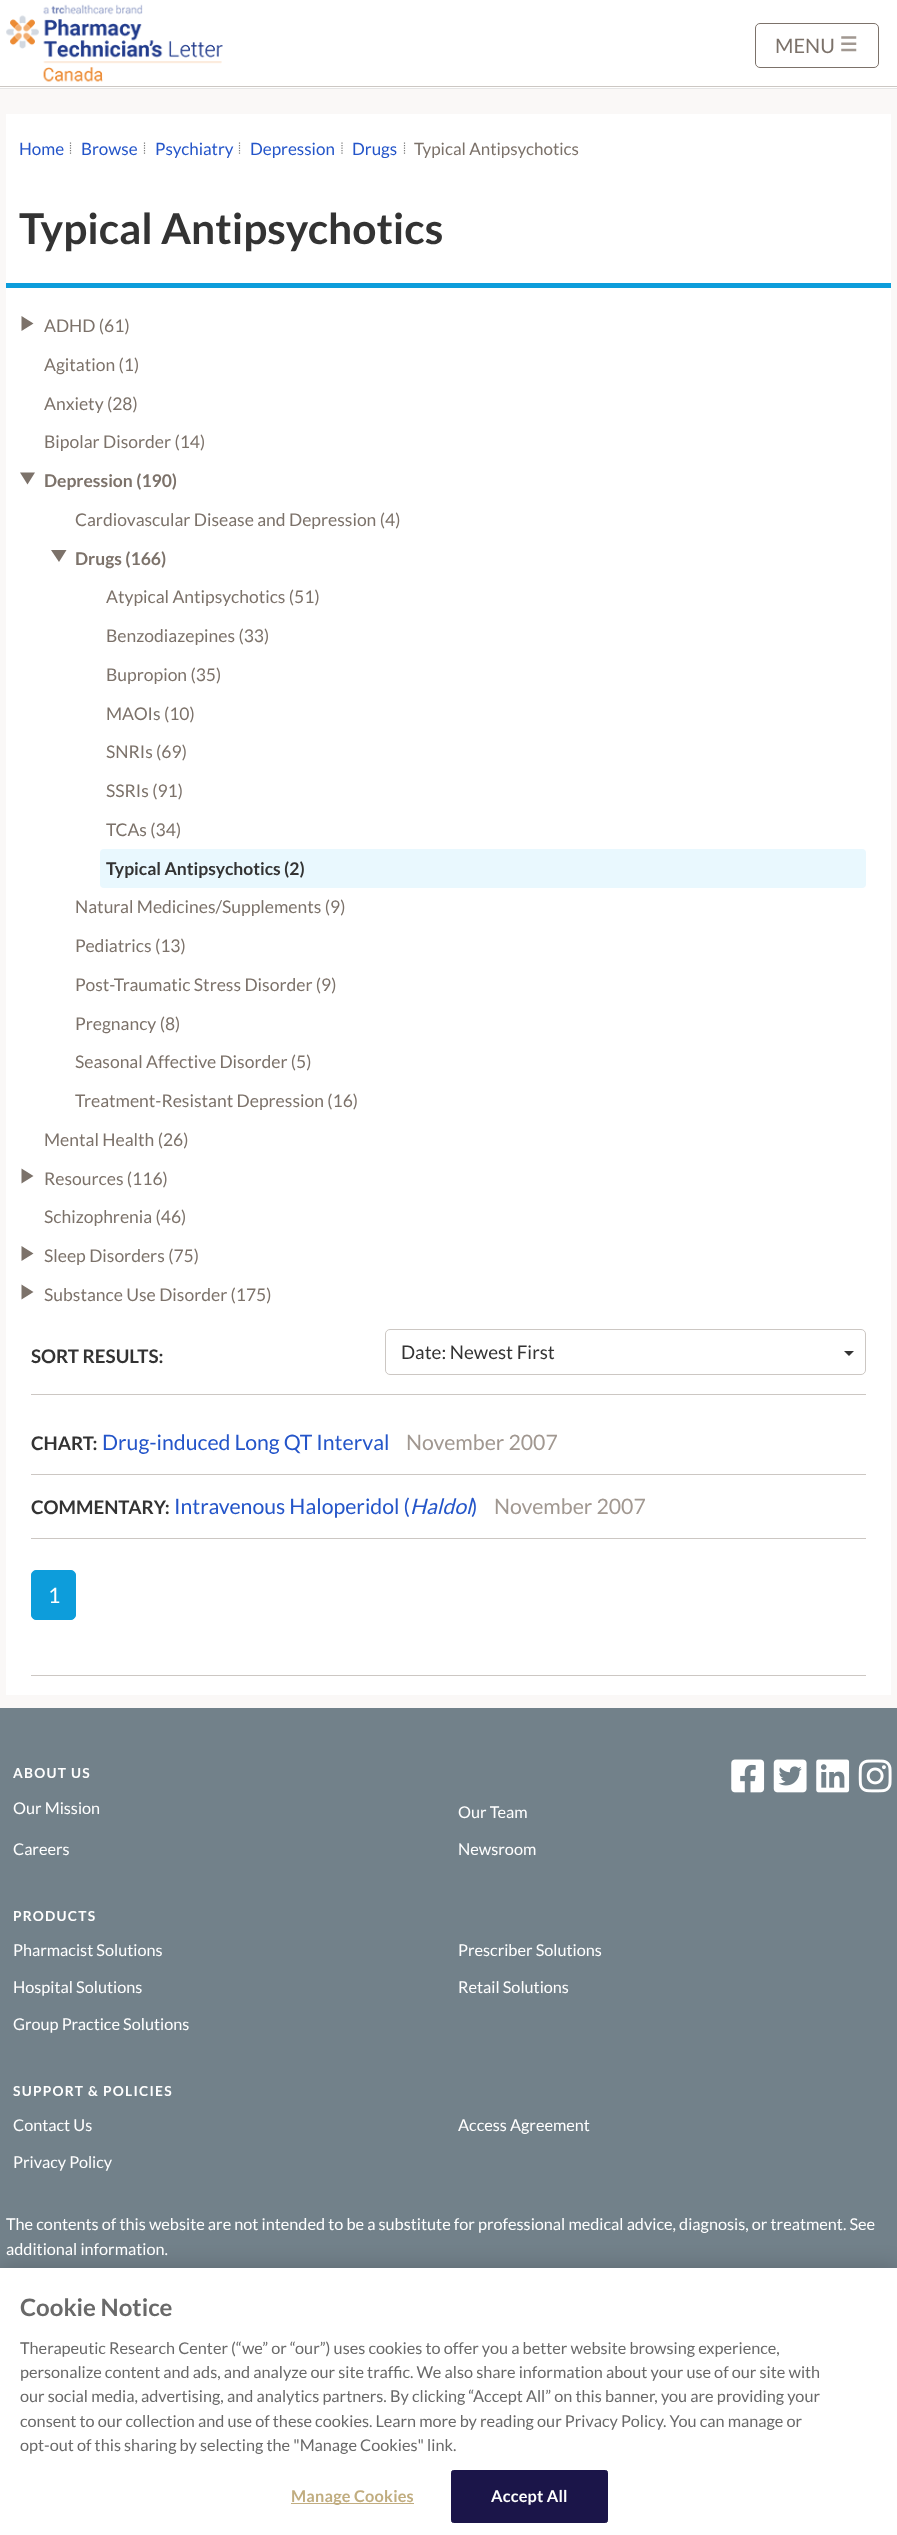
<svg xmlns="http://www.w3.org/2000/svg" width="897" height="2535">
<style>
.a{font:20px Lato;fill:#7c726a}
.b{font:17px Lato;fill:#2455c9}
.c{font:17px Lato;fill:#7c726a}
.d{font:bold 42.5px Lato;fill:#333}
.e{font:17.5px Lato;fill:#7c726a}
.f{font:bold 17.5px Lato;fill:#7c726a}
.g{font:bold 17.5px Lato;fill:#333}
.h{font:bold 18.75px Lato;fill:#333}
.i{font:18.75px Lato;fill:#333}
.j{font:21.25px Lato;fill:#2455c9}
.k{font:21.25px Lato;fill:#a19891}
.l{font:italic 21.25px Lato;fill:#2455c9}
.m{font:21.25px Lato;fill:#fff}
.n{font:bold 13.75px Lato;letter-spacing:1.25px;fill:#fff}
.o{font:16.25px Lato;fill:#fff}
.p{font:bold 24px Lato;fill:#696969}
.q{font:16.25px Lato;fill:#696969}
.r{font:bold 16.25px Lato;letter-spacing:0.2px;fill:#c1ad80}
.s{font:bold 16.25px Lato;letter-spacing:0.2px;fill:#fff}
</style>
<rect width="100%" height="100%" fill="#faf8f7"/>
<path fill="#fff" d="M0 0h897v88H0z"/>
<path fill="#e6e6e6" d="M0 88h897v1H0z"/>
<image href="1.png" x="6" y="4" width="217" height="78"/>
<rect fill="none" stroke="#7c726a" x="755.5" y="23.5" width="123" height="44" rx="4.5"/>
<image href="2.png" x="841" y="36" width="16" height="16"/>
<path fill="#ccc7c3" d="M0 86h897v1H0z"/>
<path fill="#fff" d="M6 114h885v169H6z"/>
<path fill="#0d9ddb" d="M6 283h885v5H6z"/>
<path fill="none" stroke="#777" stroke-width="1.2" stroke-dasharray="1.25 1.25" d="M70.5 142.5v12.5"/>
<path fill="none" stroke="#777" stroke-width="1.2" stroke-dasharray="1.25 1.25" d="M144.5 142.5v12.5"/>
<path fill="none" stroke="#777" stroke-width="1.2" stroke-dasharray="1.25 1.25" d="M239.5 142.5v12.5"/>
<path fill="none" stroke="#777" stroke-width="1.2" stroke-dasharray="1.25 1.25" d="M342 142.5v12.5"/>
<path fill="none" stroke="#777" stroke-width="1.2" stroke-dasharray="1.25 1.25" d="M404.5 142.5v12.5"/>
<path fill="#fff" d="M6 288h885v1407H6z"/>
<path fill="#7c726a" d="M21.5 331v-15l12 7.5z"/>
<path fill="#7c726a" d="M20 472.5h15l-7.5 12z"/>
<path fill="#7c726a" d="M51 550h15.5l-7.5 12z"/>
<rect fill="#e9f8fe" x="100" y="849" width="766" height="39" rx="4"/>
<path fill="#7c726a" d="M21.5 1183.5v-15l12 7.5z"/>
<path fill="#7c726a" d="M21.5 1261v-15l12 7.5z"/>
<path fill="#7c726a" d="M21.5 1299.5v-15l12 7.5z"/>
<rect fill="none" stroke="#ccc7c3" x="385.5" y="1329.5" width="480" height="45" rx="4.5"/>
<path fill="#333" d="M844 1351h10l-5 5z"/>
<path fill="#ccc7c3" d="M31 1394h835v1H31z"/>
<path fill="#ccc7c3" d="M31 1675h835v1H31z"/>
<path fill="#ccc7c3" d="M31 1474h835v1H31z"/>
<path fill="#ccc7c3" d="M31 1538h835v1H31z"/>
<rect fill="#0d9ddb" stroke="#0d9ddb" x="31.5" y="1570.5" width="44" height="49" rx="4.5"/>
<path fill="#72818a" d="M0 1708h897v560H0z"/>
<image href="3.png" x="731" y="1759" width="34" height="34"/>
<image href="4.png" x="773" y="1759" width="34" height="34"/>
<image href="5.png" x="816" y="1759" width="34" height="34"/>
<image href="6.png" x="858" y="1759" width="34" height="34"/>
<path fill="#00000033" filter="blur(11px)" d="M0 2268h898v267H0z"/>
<path fill="#fff" d="M0 2268h897v267H0z"/>
<path fill="#c1ad80" d="M291 2503h123v1H291z"/>
<rect fill="#1b1549" stroke="#1b1549" x="451.5" y="2470.5" width="156" height="52" rx="2"/>
<text class="a" x="775" y="53">MENU</text>
<text class="b" x="19" y="155">Home</text>
<text class="b" x="81" y="155">Browse</text>
<text class="b" x="155" y="155">Psychiatry</text>
<text class="b" x="250" y="155">Depression</text>
<text class="b" x="352" y="155">Drugs</text>
<text class="c" x="414" y="155">Typical Antipsychotics</text>
<text class="d" x="19" y="244">Typical Antipsychotics</text>
<text class="e" x="44" y="332">ADHD (61)</text>
<text class="e" x="44" y="371">Agitation (1)</text>
<text class="e" x="44" y="410">Anxiety (28)</text>
<text class="e" x="44" y="448">Bipolar Disorder (14)</text>
<text class="f" x="44" y="487">Depression (190)</text>
<text class="e" x="75" y="526">Cardiovascular Disease and Depression (4)</text>
<text class="f" x="75" y="565">Drugs (166)</text>
<text class="e" x="106" y="603">Atypical Antipsychotics (51)</text>
<text class="e" x="106" y="642">Benzodiazepines (33)</text>
<text class="e" x="106" y="681">Bupropion (35)</text>
<text class="e" x="106" y="720">MAOIs (10)</text>
<text class="e" x="106" y="758">SNRIs (69)</text>
<text class="e" x="106" y="797">SSRIs (91)</text>
<text class="e" x="106" y="836">TCAs (34)</text>
<text class="g" x="106" y="875">Typical Antipsychotics (2)</text>
<text class="e" x="75" y="913">Natural Medicines/Supplements (9)</text>
<text class="e" x="75" y="952">Pediatrics (13)</text>
<text class="e" x="75" y="991">Post-Traumatic Stress Disorder (9)</text>
<text class="e" x="75" y="1030">Pregnancy (8)</text>
<text class="e" x="75" y="1068">Seasonal Affective Disorder (5)</text>
<text class="e" x="75" y="1107">Treatment-Resistant Depression (16)</text>
<text class="e" x="44" y="1146">Mental Health (26)</text>
<text class="e" x="44" y="1185">Resources (116)</text>
<text class="e" x="44" y="1223">Schizophrenia (46)</text>
<text class="e" x="44" y="1262">Sleep Disorders (75)</text>
<text class="e" x="44" y="1301">Substance Use Disorder (175)</text>
<text class="h" x="31" y="1363">SORT RESULTS:</text>
<text class="i" x="401" y="1359">Date: Newest First</text>
<text class="h" x="31" y="1450">CHART:</text>
<text class="j" x="102" y="1450">Drug-induced Long QT Interval</text>
<text class="k" x="406" y="1450">November 2007</text>
<text class="h" x="31" y="1514">COMMENTARY:</text>
<text class="j" x="174" y="1514">Intravenous Haloperidol (</text>
<text class="l" x="410" y="1514">Haldol</text>
<text class="j" x="471" y="1514">)</text>
<text class="k" x="494" y="1514">November 2007</text>
<text class="m" x="48" y="1603">1</text>
<text class="n" x="13" y="1778">ABOUT US</text>
<text class="o" x="13" y="1814">Our Mission</text>
<text class="o" x="458" y="1818">Our Team</text>
<text class="o" x="13" y="1855">Careers</text>
<text class="o" x="458" y="1855">Newsroom</text>
<text class="n" x="13" y="1921">PRODUCTS</text>
<text class="o" x="13" y="1956">Pharmacist Solutions</text>
<text class="o" x="458" y="1956">Prescriber Solutions</text>
<text class="o" x="13" y="1993">Hospital Solutions</text>
<text class="o" x="458" y="1993">Retail Solutions</text>
<text class="o" x="13" y="2030">Group Practice Solutions</text>
<text class="n" x="13" y="2096">SUPPORT &amp; POLICIES</text>
<text class="o" x="13" y="2131">Contact Us</text>
<text class="o" x="458" y="2131">Access Agreement</text>
<text class="o" x="13" y="2168">Privacy Policy</text>
<text class="o" x="6" y="2230">The contents of this website are not intended to be a substitute for professional medical advice, diagnosis, or treatment. See</text>
<text class="o" x="6" y="2255">additional information.</text>
<text class="p" x="20" y="2316">Cookie Notice</text>
<text class="q" x="20" y="2354">Therapeutic Research Center (“we” or “our”) uses cookies to offer you a better website browsing experience,</text>
<text class="q" x="20" y="2378">personalize content and ads, and analyze our site traffic. We also share information about your use of our site with</text>
<text class="q" x="20" y="2402">our social media, advertising, and analytics partners. By clicking “Accept All” on this banner, you are providing your</text>
<text class="q" x="20" y="2427">consent to our collection and use of these cookies. Learn more by reading our Privacy Policy. You can manage or</text>
<text class="q" x="20" y="2451">opt-out of this sharing by selecting the "Manage Cookies" link.</text>
<text class="r" x="291" y="2502">Manage Cookies</text>
<text class="s" x="491" y="2502">Accept All</text>
</svg>
